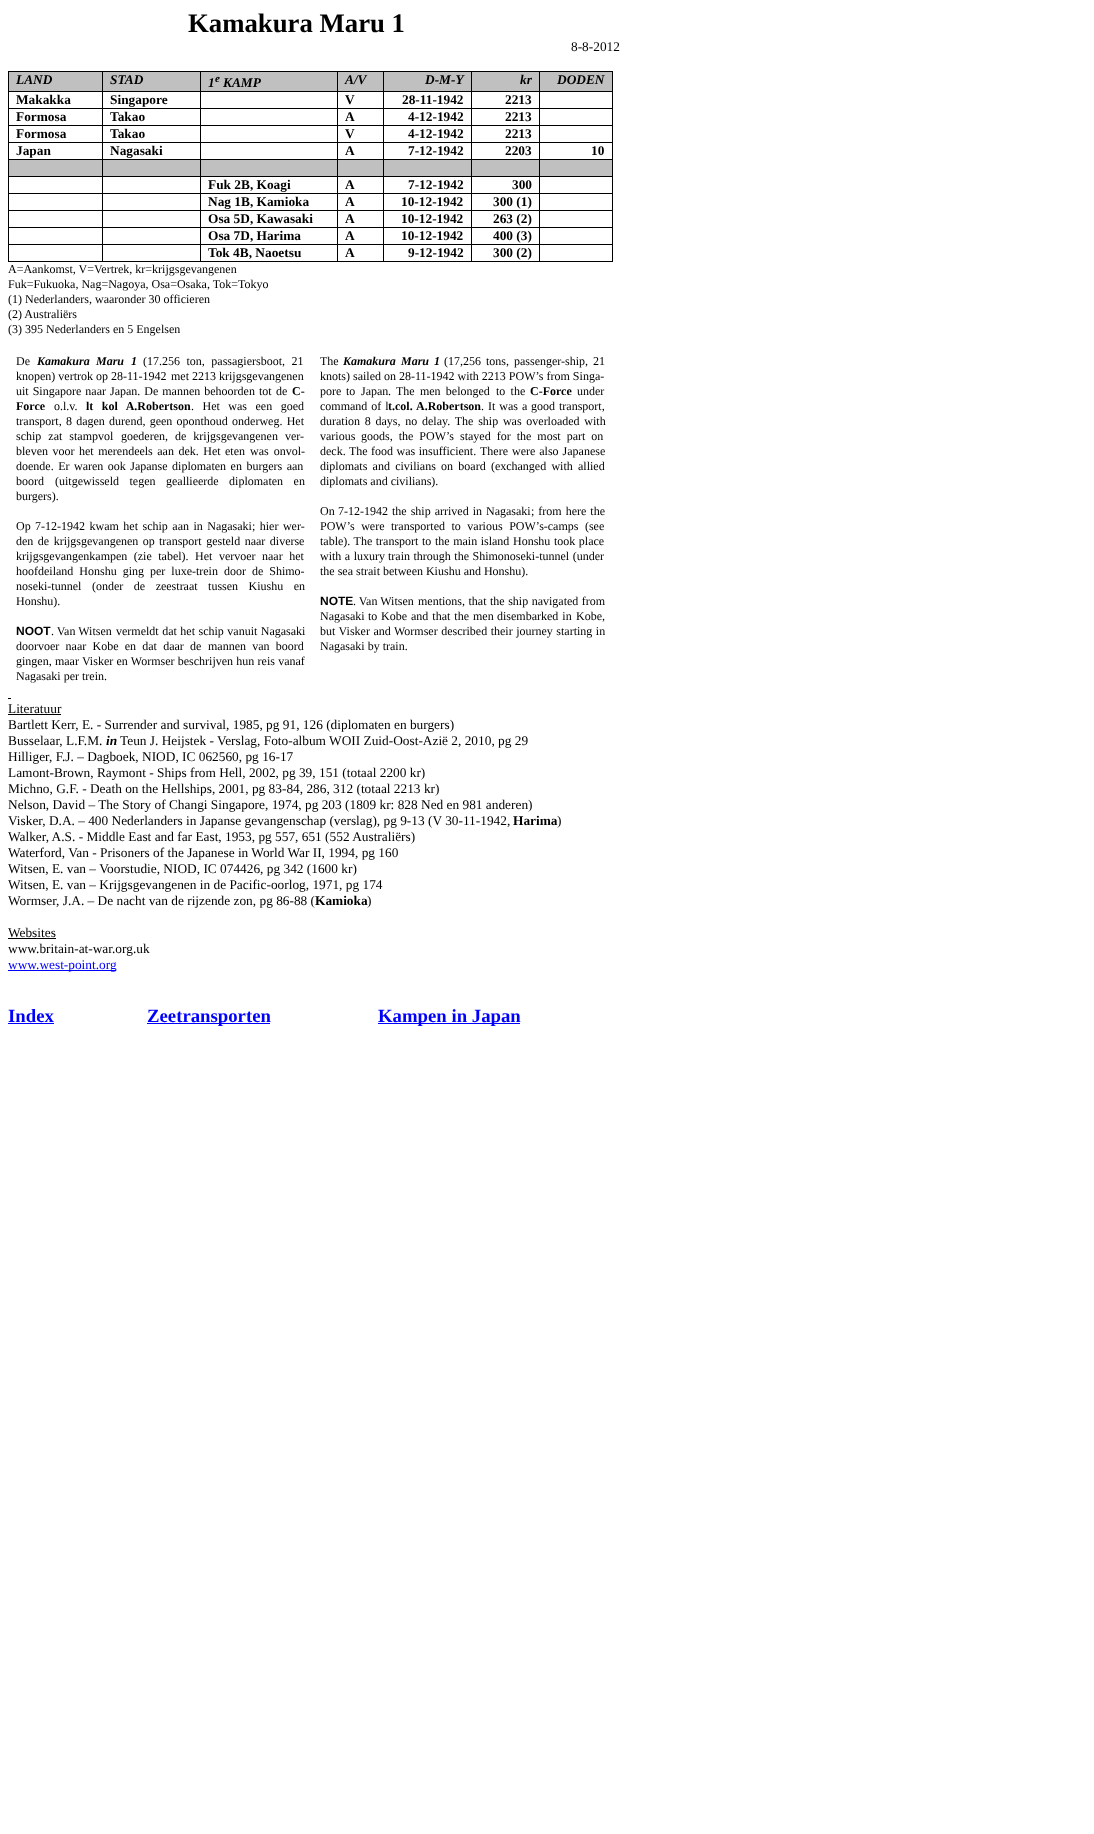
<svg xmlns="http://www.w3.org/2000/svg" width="1094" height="1834">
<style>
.a{font:bold 26.75px Liberation Serif;fill:#000}
.b{font:13.35px Liberation Serif;fill:#000}
.c{font:italic bold 13.35px Liberation Serif;fill:#000}
.d{font:italic bold 11px Liberation Serif;fill:#000}
.e{font:bold 13.35px Liberation Serif;fill:#000}
.f{font:12px Liberation Serif;fill:#000}
.g{font:italic bold 12px Liberation Serif;fill:#000}
.h{font:bold 12px Liberation Serif;fill:#000}
.i{font:bold 12px Liberation Sans;fill:#000}
.j{font:13.35px Liberation Serif;fill:#00f}
.k{font:bold 18.75px Liberation Serif;fill:#00f}
</style>
<rect width="100%" height="100%" fill="#fff"/>
<path fill="#c0c0c0" d="M9 72h93v19H9z"/>
<path fill="#000" d="M8 71h605v1H8z"/>
<path fill="#000" d="M612 91h1v171H612z"/>
<path fill="#000" d="M612 71h1v21H612z"/>
<path fill="#000" d="M539 261h74v1H539z"/>
<path fill="#000" d="M539 244h1v18H539z"/>
<path fill="#000" d="M539 244h74v1H539z"/>
<path fill="#000" d="M539 227h1v18H539z"/>
<path fill="#000" d="M539 227h74v1H539z"/>
<path fill="#000" d="M539 210h1v18H539z"/>
<path fill="#000" d="M539 210h74v1H539z"/>
<path fill="#000" d="M539 193h1v18H539z"/>
<path fill="#000" d="M539 193h74v1H539z"/>
<path fill="#000" d="M539 176h1v18H539z"/>
<path fill="#000" d="M539 176h74v1H539z"/>
<path fill="#000" d="M539 159h1v18H539z"/>
<path fill="#000" d="M539 159h74v1H539z"/>
<path fill="#000" d="M539 142h1v18H539z"/>
<path fill="#000" d="M539 142h74v1H539z"/>
<path fill="#000" d="M539 125h1v18H539z"/>
<path fill="#000" d="M539 125h74v1H539z"/>
<path fill="#000" d="M539 108h1v18H539z"/>
<path fill="#000" d="M539 108h74v1H539z"/>
<path fill="#000" d="M539 91h1v18H539z"/>
<path fill="#000" d="M539 91h74v1H539z"/>
<path fill="#000" d="M539 71h1v21H539z"/>
<path fill="#000" d="M471 261h69v1H471z"/>
<path fill="#000" d="M471 244h1v18H471z"/>
<path fill="#000" d="M471 244h69v1H471z"/>
<path fill="#000" d="M471 227h1v18H471z"/>
<path fill="#000" d="M471 227h69v1H471z"/>
<path fill="#000" d="M471 210h1v18H471z"/>
<path fill="#000" d="M471 210h69v1H471z"/>
<path fill="#000" d="M471 193h1v18H471z"/>
<path fill="#000" d="M471 193h69v1H471z"/>
<path fill="#000" d="M471 176h1v18H471z"/>
<path fill="#000" d="M471 176h69v1H471z"/>
<path fill="#000" d="M471 159h1v18H471z"/>
<path fill="#000" d="M471 159h69v1H471z"/>
<path fill="#000" d="M471 142h1v18H471z"/>
<path fill="#000" d="M471 142h69v1H471z"/>
<path fill="#000" d="M471 125h1v18H471z"/>
<path fill="#000" d="M471 125h69v1H471z"/>
<path fill="#000" d="M471 108h1v18H471z"/>
<path fill="#000" d="M471 108h69v1H471z"/>
<path fill="#000" d="M471 91h1v18H471z"/>
<path fill="#000" d="M471 91h69v1H471z"/>
<path fill="#000" d="M471 71h1v21H471z"/>
<path fill="#000" d="M383 261h89v1H383z"/>
<path fill="#000" d="M383 244h1v18H383z"/>
<path fill="#000" d="M383 244h89v1H383z"/>
<path fill="#000" d="M383 227h1v18H383z"/>
<path fill="#000" d="M383 227h89v1H383z"/>
<path fill="#000" d="M383 210h1v18H383z"/>
<path fill="#000" d="M383 210h89v1H383z"/>
<path fill="#000" d="M383 193h1v18H383z"/>
<path fill="#000" d="M383 193h89v1H383z"/>
<path fill="#000" d="M383 176h1v18H383z"/>
<path fill="#000" d="M383 176h89v1H383z"/>
<path fill="#000" d="M383 159h1v18H383z"/>
<path fill="#000" d="M383 159h89v1H383z"/>
<path fill="#000" d="M383 142h1v18H383z"/>
<path fill="#000" d="M383 142h89v1H383z"/>
<path fill="#000" d="M383 125h1v18H383z"/>
<path fill="#000" d="M383 125h89v1H383z"/>
<path fill="#000" d="M383 108h1v18H383z"/>
<path fill="#000" d="M383 108h89v1H383z"/>
<path fill="#000" d="M383 91h1v18H383z"/>
<path fill="#000" d="M383 91h89v1H383z"/>
<path fill="#000" d="M383 71h1v21H383z"/>
<path fill="#000" d="M337 261h47v1H337z"/>
<path fill="#000" d="M337 244h1v18H337z"/>
<path fill="#000" d="M337 244h47v1H337z"/>
<path fill="#000" d="M337 227h1v18H337z"/>
<path fill="#000" d="M337 227h47v1H337z"/>
<path fill="#000" d="M337 210h1v18H337z"/>
<path fill="#000" d="M337 210h47v1H337z"/>
<path fill="#000" d="M337 193h1v18H337z"/>
<path fill="#000" d="M337 193h47v1H337z"/>
<path fill="#000" d="M337 176h1v18H337z"/>
<path fill="#000" d="M337 176h47v1H337z"/>
<path fill="#000" d="M337 159h1v18H337z"/>
<path fill="#000" d="M337 159h47v1H337z"/>
<path fill="#000" d="M337 142h1v18H337z"/>
<path fill="#000" d="M337 142h47v1H337z"/>
<path fill="#000" d="M337 125h1v18H337z"/>
<path fill="#000" d="M337 125h47v1H337z"/>
<path fill="#000" d="M337 108h1v18H337z"/>
<path fill="#000" d="M337 108h47v1H337z"/>
<path fill="#000" d="M337 91h1v18H337z"/>
<path fill="#000" d="M337 91h47v1H337z"/>
<path fill="#000" d="M337 71h1v21H337z"/>
<path fill="#000" d="M200 261h138v1H200z"/>
<path fill="#000" d="M200 244h1v18H200z"/>
<path fill="#000" d="M200 244h138v1H200z"/>
<path fill="#000" d="M200 227h1v18H200z"/>
<path fill="#000" d="M200 227h138v1H200z"/>
<path fill="#000" d="M200 210h1v18H200z"/>
<path fill="#000" d="M200 210h138v1H200z"/>
<path fill="#000" d="M200 193h1v18H200z"/>
<path fill="#000" d="M200 193h138v1H200z"/>
<path fill="#000" d="M200 176h1v18H200z"/>
<path fill="#000" d="M200 176h138v1H200z"/>
<path fill="#000" d="M200 159h1v18H200z"/>
<path fill="#000" d="M200 159h138v1H200z"/>
<path fill="#000" d="M200 142h1v18H200z"/>
<path fill="#000" d="M200 142h138v1H200z"/>
<path fill="#000" d="M200 125h1v18H200z"/>
<path fill="#000" d="M200 125h138v1H200z"/>
<path fill="#000" d="M200 108h1v18H200z"/>
<path fill="#000" d="M200 108h138v1H200z"/>
<path fill="#000" d="M200 91h1v18H200z"/>
<path fill="#000" d="M200 91h138v1H200z"/>
<path fill="#000" d="M200 71h1v21H200z"/>
<path fill="#000" d="M102 261h99v1H102z"/>
<path fill="#000" d="M102 244h1v18H102z"/>
<path fill="#000" d="M102 244h99v1H102z"/>
<path fill="#000" d="M102 227h1v18H102z"/>
<path fill="#000" d="M102 227h99v1H102z"/>
<path fill="#000" d="M102 210h1v18H102z"/>
<path fill="#000" d="M102 210h99v1H102z"/>
<path fill="#000" d="M102 193h1v18H102z"/>
<path fill="#000" d="M102 193h99v1H102z"/>
<path fill="#000" d="M102 176h1v18H102z"/>
<path fill="#000" d="M102 176h99v1H102z"/>
<path fill="#000" d="M102 159h1v18H102z"/>
<path fill="#000" d="M102 159h99v1H102z"/>
<path fill="#000" d="M102 142h1v18H102z"/>
<path fill="#000" d="M102 142h99v1H102z"/>
<path fill="#000" d="M102 125h1v18H102z"/>
<path fill="#000" d="M102 125h99v1H102z"/>
<path fill="#000" d="M102 108h1v18H102z"/>
<path fill="#000" d="M102 108h99v1H102z"/>
<path fill="#000" d="M102 91h1v18H102z"/>
<path fill="#000" d="M102 91h99v1H102z"/>
<path fill="#000" d="M102 71h1v21H102z"/>
<path fill="#000" d="M8 261h95v1H8z"/>
<path fill="#000" d="M8 244h1v18H8z"/>
<path fill="#000" d="M8 244h95v1H8z"/>
<path fill="#000" d="M8 227h1v18H8z"/>
<path fill="#000" d="M8 227h95v1H8z"/>
<path fill="#000" d="M8 210h1v18H8z"/>
<path fill="#000" d="M8 210h95v1H8z"/>
<path fill="#000" d="M8 193h1v18H8z"/>
<path fill="#000" d="M8 193h95v1H8z"/>
<path fill="#000" d="M8 176h1v18H8z"/>
<path fill="#000" d="M8 176h95v1H8z"/>
<path fill="#000" d="M8 159h1v18H8z"/>
<path fill="#000" d="M8 159h95v1H8z"/>
<path fill="#000" d="M8 142h1v18H8z"/>
<path fill="#000" d="M8 142h95v1H8z"/>
<path fill="#000" d="M8 125h1v18H8z"/>
<path fill="#000" d="M8 125h95v1H8z"/>
<path fill="#000" d="M8 108h1v18H8z"/>
<path fill="#000" d="M8 108h95v1H8z"/>
<path fill="#000" d="M8 91h1v18H8z"/>
<path fill="#000" d="M8 91h95v1H8z"/>
<path fill="#000" d="M8 71h1v21H8z"/>
<path fill="#c0c0c0" d="M103 72h97v19H103z"/>
<path fill="#c0c0c0" d="M201 72h136v19H201z"/>
<path fill="#c0c0c0" d="M338 72h45v19H338z"/>
<path fill="#c0c0c0" d="M384 72h87v19H384z"/>
<path fill="#c0c0c0" d="M472 72h67v19H472z"/>
<path fill="#c0c0c0" d="M540 72h72v19H540z"/>
<path fill="#c0c0c0" d="M9 160h93v16H9z"/>
<path fill="#c0c0c0" d="M103 160h97v16H103z"/>
<path fill="#c0c0c0" d="M201 160h136v16H201z"/>
<path fill="#c0c0c0" d="M338 160h45v16H338z"/>
<path fill="#c0c0c0" d="M384 160h87v16H384z"/>
<path fill="#c0c0c0" d="M472 160h67v16H472z"/>
<path fill="#c0c0c0" d="M540 160h72v16H540z"/>
<path fill="#000" d="M8 698h3v1H8z"/>
<path fill="#000" d="M8 714h53v1H8z"/>
<path fill="#000" d="M8 938h48v1H8z"/>
<path fill="#00f" d="M8 970h108v1H8z"/>
<path fill="#00f" d="M8 1023h46v1H8z"/>
<path fill="#00f" d="M147 1023h123v1H147z"/>
<path fill="#00f" d="M378 1023h142v1H378z"/>
<text class="a" x="188" y="32">Kamakura Maru 1</text>
<text class="b" x="571" y="51">8-8-2012</text>
<text class="c" x="16" y="84">LAND</text>
<text class="c" x="110" y="84">STAD</text>
<text class="c" x="208" y="87">1</text>
<text class="d" x="215" y="82">e</text>
<text class="c" x="223" y="87">KAMP</text>
<text class="c" x="345" y="84">A/V</text>
<text class="c" x="425" y="84">D-M-Y</text>
<text class="c" x="520" y="84">kr</text>
<text class="c" x="557" y="84">DODEN</text>
<text class="e" x="16" y="104">Makakka</text>
<text class="e" x="110" y="104">Singapore</text>
<text class="e" x="345" y="104">V</text>
<text class="e" x="402" y="104">28-11-1942</text>
<text class="e" x="505" y="104">2213</text>
<text class="e" x="16" y="121">Formosa</text>
<text class="e" x="110" y="121">Takao</text>
<text class="e" x="345" y="121">A</text>
<text class="e" x="408" y="121">4-12-1942</text>
<text class="e" x="505" y="121">2213</text>
<text class="e" x="16" y="138">Formosa</text>
<text class="e" x="110" y="138">Takao</text>
<text class="e" x="345" y="138">V</text>
<text class="e" x="408" y="138">4-12-1942</text>
<text class="e" x="505" y="138">2213</text>
<text class="e" x="16" y="155">Japan</text>
<text class="e" x="110" y="155">Nagasaki</text>
<text class="e" x="345" y="155">A</text>
<text class="e" x="408" y="155">7-12-1942</text>
<text class="e" x="505" y="155">2203</text>
<text class="e" x="591" y="155">10</text>
<text class="e" x="208" y="189">Fuk 2B, Koagi</text>
<text class="e" x="345" y="189">A</text>
<text class="e" x="408" y="189">7-12-1942</text>
<text class="e" x="512" y="189">300</text>
<text class="e" x="208" y="206">Nag 1B, Kamioka</text>
<text class="e" x="345" y="206">A</text>
<text class="e" x="401" y="206">10-12-1942</text>
<text class="e" x="493" y="206">300 (1)</text>
<text class="e" x="208" y="223">Osa 5D, Kawasaki</text>
<text class="e" x="345" y="223">A</text>
<text class="e" x="401" y="223">10-12-1942</text>
<text class="e" x="493" y="223">263 (2)</text>
<text class="e" x="208" y="240">Osa 7D, Harima</text>
<text class="e" x="345" y="240">A</text>
<text class="e" x="401" y="240">10-12-1942</text>
<text class="e" x="493" y="240">400 (3)</text>
<text class="e" x="208" y="257">Tok 4B, Naoetsu</text>
<text class="e" x="345" y="257">A</text>
<text class="e" x="408" y="257">9-12-1942</text>
<text class="e" x="493" y="257">300 (2)</text>
<text class="f" x="8" y="273">A=Aankomst, V=Vertrek, kr=krijgsgevangenen</text>
<text class="f" x="8" y="288">Fuk=Fukuoka, Nag=Nagoya, Osa=Osaka, Tok=Tokyo</text>
<text class="f" x="8" y="303">(1) Nederlanders, waaronder 30 officieren</text>
<text class="f" x="8" y="318">(2) Australiërs</text>
<text class="f" x="8" y="333">(3) 395 Nederlanders en 5 Engelsen</text>
<text class="f" x="16" y="365">De</text>
<text class="g" x="37" y="365">Kamakura</text>
<text class="g" x="96" y="365" word-spacing="4">Maru 1</text>
<text class="f" x="143" y="365" word-spacing="3.5">(17.256 ton, passagiersboot, 21</text>
<text class="f" x="16" y="380">knopen) vertrok op 28-11-1942</text>
<text class="f" x="171" y="380">met 2213 krijgsgevangenen</text>
<text class="f" x="16" y="395" word-spacing="1">uit Singapore naar Japan. De mannen behoorden tot</text>
<text class="f" x="276" y="395">de</text>
<text class="h" x="292" y="395">C-</text>
<text class="h" x="16" y="410">Force</text>
<text class="f" x="54" y="410">o.l.v.</text>
<text class="h" x="86" y="410" word-spacing="5.5">lt kol A.Robertson</text>
<text class="f" x="191" y="410" word-spacing="5.5">. Het was een goed</text>
<text class="f" x="16" y="425" word-spacing="1.25">transport, 8 dagen durend, geen oponthoud onderweg. Het</text>
<text class="f" x="16" y="440" word-spacing="4">schip zat stampvol</text>
<text class="f" x="121" y="440" word-spacing="4">goederen, de krijgsgevangenen ver-</text>
<text class="f" x="16" y="455" word-spacing="1.5">bleven voor het merendeels aan dek. Het</text>
<text class="f" x="225" y="455" word-spacing="2">eten was onvol-</text>
<text class="f" x="16" y="470" word-spacing="1.5">doende. Er waren ook Japanse diplomaten en burgers aan</text>
<text class="f" x="16" y="485">boord</text>
<text class="f" x="55" y="485" word-spacing="7.5">(uitgewisseld tegen geallieerde diplomaten en</text>
<text class="f" x="16" y="500">burgers).</text>
<text class="f" x="16" y="530">Op</text>
<text class="f" x="35" y="530" word-spacing="1.5">7-12-1942 kwam het schip aan in Nagasaki; hier wer-</text>
<text class="f" x="16" y="545" word-spacing="1.5">den de krijgsgevangenen op</text>
<text class="f" x="159" y="545" word-spacing="1.5">transport gesteld naar diverse</text>
<text class="f" x="16" y="560" word-spacing="3.5">krijgsgevangenkampen (zie tabel). Het vervoer</text>
<text class="f" x="262" y="560" word-spacing="3.5">naar het</text>
<text class="f" x="16" y="575" word-spacing="3">hoofdeiland Honshu ging per luxe-trein door de Shimo-</text>
<text class="f" x="16" y="590">noseki-tunnel</text>
<text class="f" x="92" y="590" word-spacing="7.5">(onder de zeestraat tussen Kiushu en</text>
<text class="f" x="16" y="605">Honshu).</text>
<text class="i" x="16" y="635">NOOT</text>
<text class="f" x="51" y="635">. Van Witsen</text>
<text class="f" x="116" y="635" word-spacing="0.5">vermeldt dat het schip vanuit Nagasaki</text>
<text class="f" x="16" y="650" word-spacing="3.25">doorvoer naar Kobe en dat daar de</text>
<text class="f" x="208" y="650" word-spacing="3.25">mannen van boord</text>
<text class="f" x="16" y="665" word-spacing="0.25">gingen, maar Visker en Wormser beschrijven hun reis vanaf</text>
<text class="f" x="16" y="680">Nagasaki per trein.</text>
<text class="f" x="320" y="365">The</text>
<text class="g" x="343" y="365">Kamakura</text>
<text class="g" x="401" y="365" word-spacing="2">Maru 1</text>
<text class="f" x="444" y="365" word-spacing="2">(17,256 tons,</text>
<text class="f" x="514" y="365" word-spacing="2">passenger-ship, 21</text>
<text class="f" x="320" y="380">knots) sailed on 28-11-1942 with 2213 POW’s from Singa-</text>
<text class="f" x="320" y="395">pore</text>
<text class="f" x="346" y="395">to</text>
<text class="f" x="361" y="395">Japan</text>
<text class="f" x="388" y="395" word-spacing="2.25">. The men belonged</text>
<text class="f" x="496" y="395" word-spacing="2.25">to the</text>
<text class="h" x="530" y="395">C-Force</text>
<text class="f" x="577" y="395">under</text>
<text class="f" x="320" y="410" word-spacing="1">command of l</text>
<text class="h" x="388" y="410" word-spacing="1">t.col. A.Robertson</text>
<text class="f" x="481" y="410" word-spacing="1">. It was a</text>
<text class="f" x="531" y="410" word-spacing="1">good transport,</text>
<text class="f" x="320" y="425" word-spacing="1.75">duration 8 days, no delay. The ship was overloaded with</text>
<text class="f" x="320" y="440">various</text>
<text class="f" x="361" y="440" word-spacing="3">goods, the POW’s stayed for the most part on</text>
<text class="f" x="320" y="455" word-spacing="0.5">deck. The food was insufficient.</text>
<text class="f" x="480" y="455" word-spacing="1">There were also Japanese</text>
<text class="f" x="320" y="470" word-spacing="2.25">diplomats and civilians on board (exchanged with</text>
<text class="f" x="578" y="470">allied</text>
<text class="f" x="320" y="485">diplomats and civilians).</text>
<text class="f" x="320" y="515">On</text>
<text class="f" x="338" y="515">7-12-1942</text>
<text class="f" x="392" y="515" word-spacing="1">the ship arrived in</text>
<text class="f" x="486" y="515">Nagasaki</text>
<text class="f" x="531" y="515" word-spacing="1">; from here the</text>
<text class="f" x="320" y="530" word-spacing="3.5">POW’s were transported to various POW’s-camps (see</text>
<text class="f" x="320" y="545" word-spacing="0.5">table). The transport to</text>
<text class="f" x="435" y="545" word-spacing="0.5">the main island</text>
<text class="f" x="513" y="545">Honshu</text>
<text class="f" x="554" y="545" word-spacing="0.5">took place</text>
<text class="f" x="320" y="560" word-spacing="0.5">with a luxury</text>
<text class="f" x="388" y="560" word-spacing="0.5">train through the Shimonoseki-tunnel (under</text>
<text class="f" x="320" y="575">the sea strait between Kiushu and Honshu).</text>
<text class="i" x="320" y="605">NOTE</text>
<text class="f" x="353" y="605">. Van Witsen</text>
<text class="f" x="418" y="605" word-spacing="0.5">mentions, that the ship navigated from</text>
<text class="f" x="320" y="620">Nagasaki</text>
<text class="f" x="368" y="620">to</text>
<text class="f" x="381" y="620">Kobe</text>
<text class="f" x="411" y="620" word-spacing="1">and that the men</text>
<text class="f" x="497" y="620" word-spacing="1">disembarked in</text>
<text class="f" x="576" y="620">Kobe,</text>
<text class="f" x="320" y="635" word-spacing="0.5">but Visker and</text>
<text class="f" x="394" y="635" word-spacing="0.5">Wormser described their journey starting in</text>
<text class="f" x="320" y="650">Nagasaki by train.</text>
<text class="b" x="8" y="713">Literatuur</text>
<text class="b" x="8" y="729">Bartlett Kerr, E. - Surrender and survival, 1985, pg 91, 126 (diplomaten en burgers)</text>
<text class="b" x="8" y="745">Busselaar, L.F.M.</text>
<text class="c" x="106" y="745">in</text>
<text class="b" x="120" y="745">Teun J. Heijstek - Verslag, Foto-album WOII Zuid-Oost-Azië 2, 2010, pg 29</text>
<text class="b" x="8" y="761">Hilliger, F.J. – Dagboek, NIOD, IC 062560, pg 16-17</text>
<text class="b" x="8" y="777">Lamont-Brown, Raymont - Ships from Hell, 2002, pg 39, 151 (totaal 2200 kr)</text>
<text class="b" x="8" y="793">Michno, G.F. - Death on the Hellships, 2001, pg 83-84, 286, 312 (totaal 2213 kr)</text>
<text class="b" x="8" y="809">Nelson, David – The Story of Changi Singapore, 1974, pg 203 (1809 kr: 828 Ned en 981 anderen)</text>
<text class="b" x="8" y="825">Visker, D.A. – 400 Nederlanders in Japanse gevangenschap (verslag), pg 9-13 (V 30-11-1942,</text>
<text class="e" x="513" y="825">Harima</text>
<text class="b" x="557" y="825">)</text>
<text class="b" x="8" y="841">Walker, A.S. - Middle East and far East, 1953, pg 557, 651 (552 Australiërs)</text>
<text class="b" x="8" y="857">Waterford, Van - Prisoners of the Japanese in World War II, 1994, pg 160</text>
<text class="b" x="8" y="873">Witsen, E. van – Voorstudie, NIOD, IC 074426, pg 342 (1600 kr)</text>
<text class="b" x="8" y="889">Witsen, E. van – Krijgsgevangenen in de Pacific-oorlog, 1971, pg 174</text>
<text class="b" x="8" y="905">Wormser, J.A. – De nacht van de rijzende zon, pg 86-88 (</text>
<text class="e" x="315" y="905">Kamioka</text>
<text class="b" x="367" y="905">)</text>
<text class="b" x="8" y="937">Websites</text>
<text class="b" x="8" y="953">www.britain-at-war.org.uk</text>
<text class="j" x="8" y="969">www.west-point.org</text>
<text class="k" x="8" y="1022">Index</text>
<text class="k" x="147" y="1022">Zeetransporten</text>
<text class="k" x="378" y="1022">Kampen in Japan</text>
</svg>
